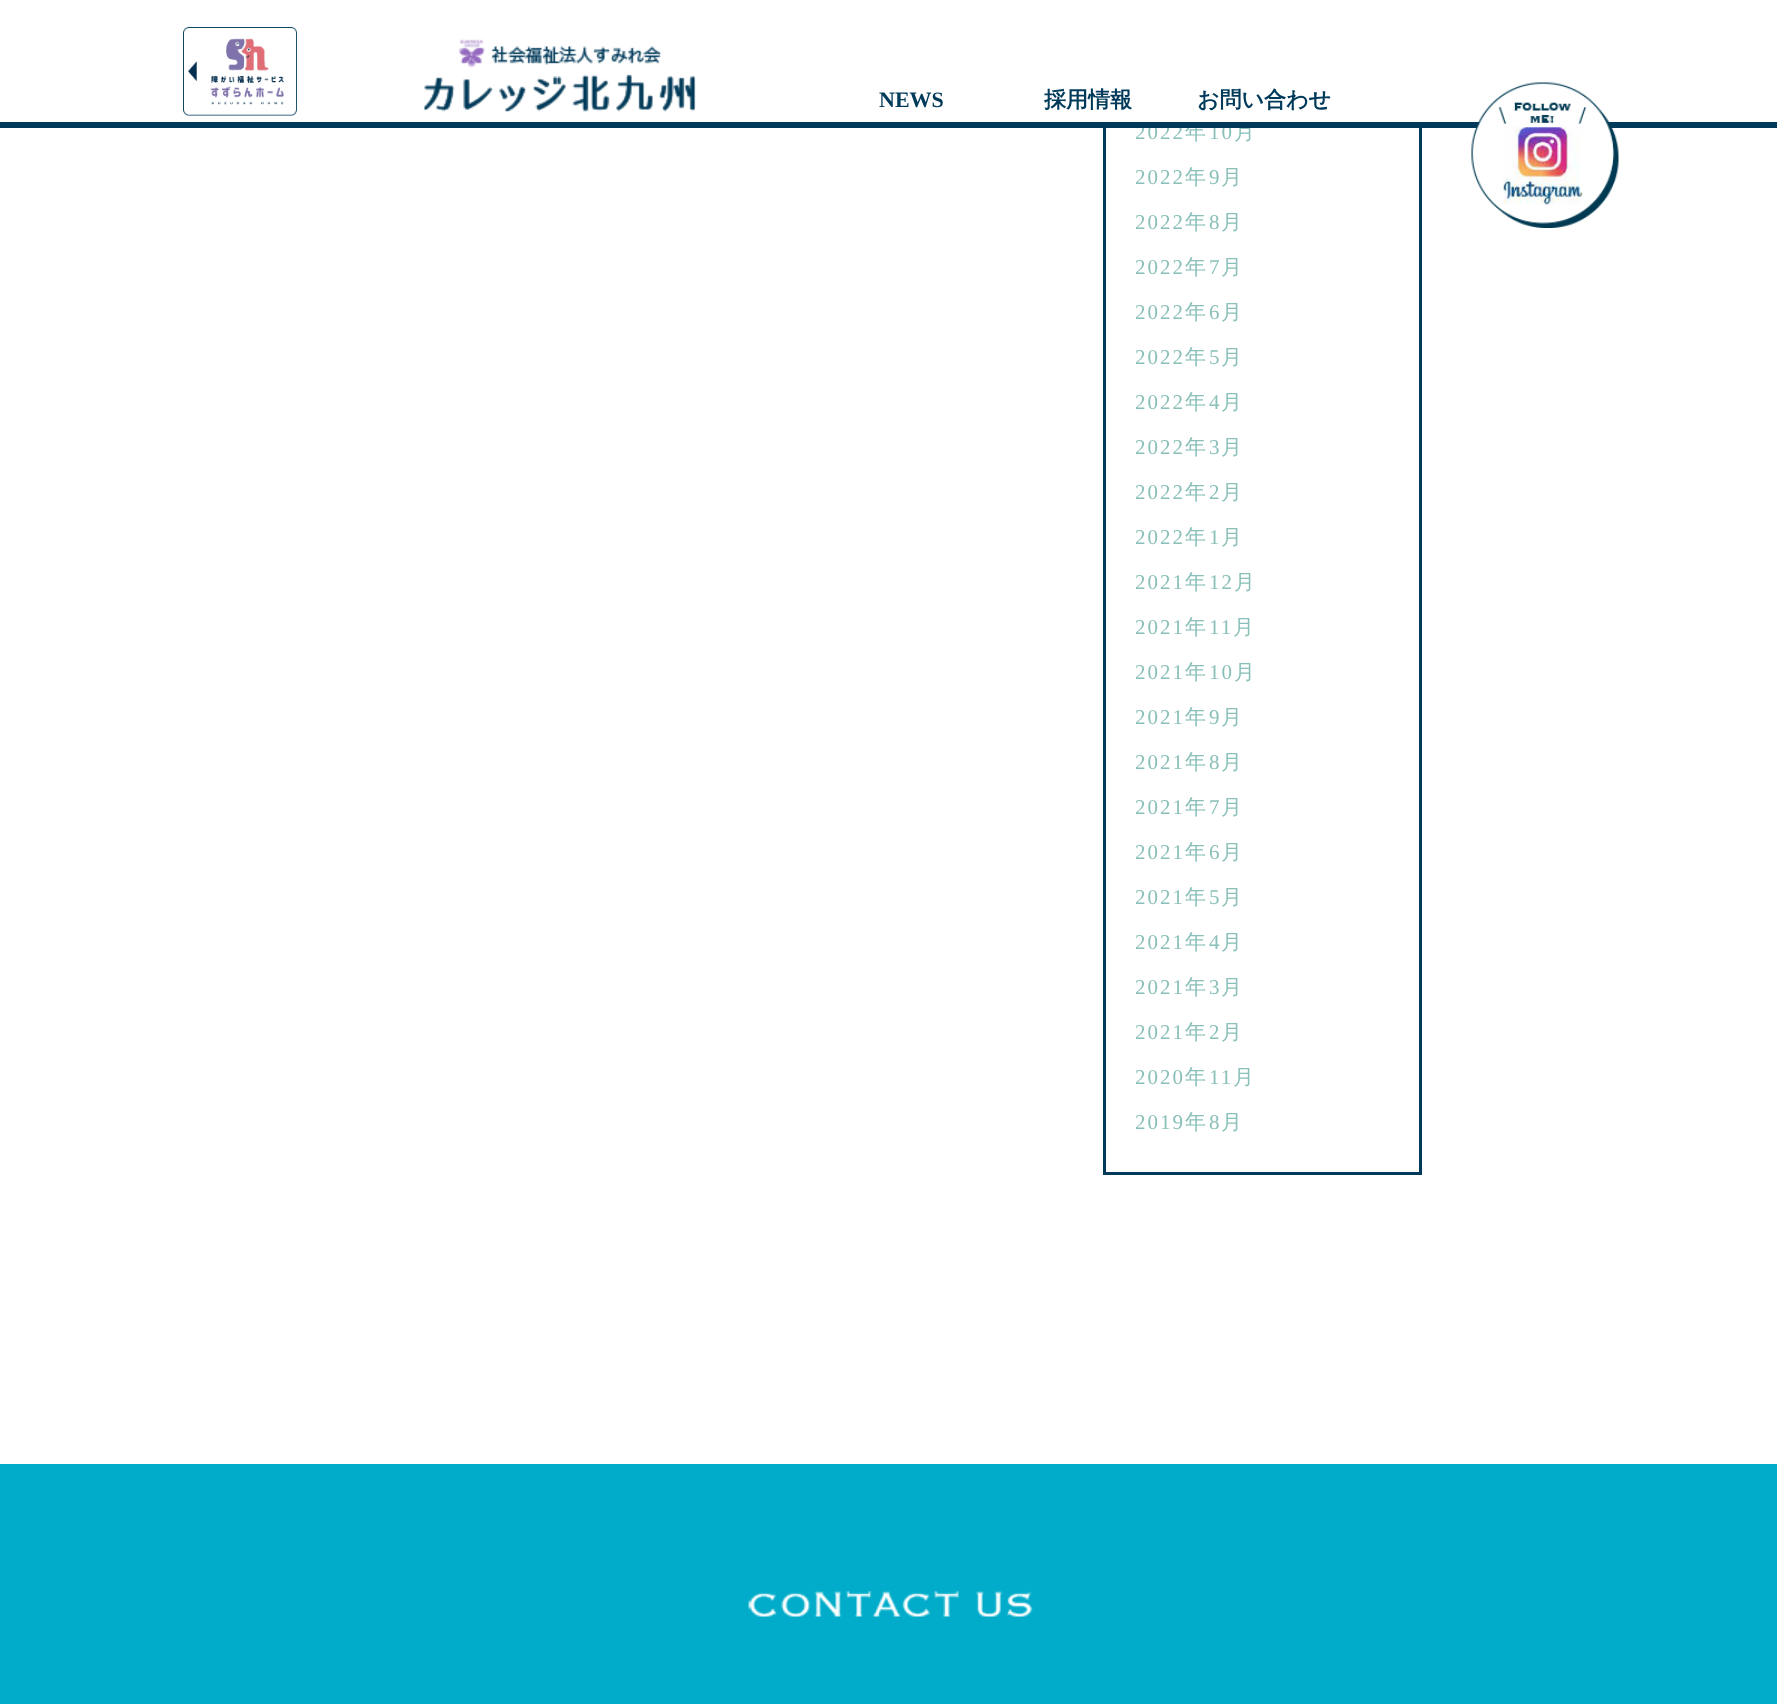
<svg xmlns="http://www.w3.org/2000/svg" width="1777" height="1704">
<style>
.a{font:bold 22px Liberation Serif;fill:#003a5a}
.b{font:bold 22px WenQuanYi Zen Hei;fill:#003a5a}
.c{font:21px Liberation Serif;letter-spacing:2px;fill:#8ac0b9}
.d{font:500 21px WenQuanYi Zen Hei;letter-spacing:2px;fill:#8ac0b9}
</style>
<rect width="100%" height="100%" fill="#fff"/>
<path fill="none" stroke="#003a5a" stroke-width="3" d="M1104.5 -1.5h316v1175H1104.5z"/>
<path fill="#fff" d="M1103 0h319v122H1103z"/>
<image href="1.png" x="183" y="27" width="114" height="89"/>
<image href="2.png" x="423" y="39" width="273" height="73"/>
<path fill="#00acc9" d="M0 1464h1777v240H0z"/>
<image href="4.png" x="748" y="1590" width="285" height="27"/>
<text class="a" x="879" y="107">NEWS</text>
<text class="b" x="1044" y="107">採用情報</text>
<text class="b" x="1197" y="107">お問い合わせ</text>
<text class="c" x="1135" y="139">2022</text>
<text class="d" x="1185" y="139">年</text>
<text class="c" x="1209" y="139">10</text>
<text class="d" x="1234" y="139">月</text>
<path fill="#003a5a" d="M0 122h1777v6H0z"/>
<image href="3.png" x="1471" y="82" width="148" height="146"/>
<text class="c" x="1135" y="184">2022</text>
<text class="d" x="1185" y="184">年</text>
<text class="c" x="1209" y="184">9</text>
<text class="d" x="1221" y="184">月</text>
<text class="c" x="1135" y="229">2022</text>
<text class="d" x="1185" y="229">年</text>
<text class="c" x="1209" y="229">8</text>
<text class="d" x="1221" y="229">月</text>
<text class="c" x="1135" y="274">2022</text>
<text class="d" x="1185" y="274">年</text>
<text class="c" x="1209" y="274">7</text>
<text class="d" x="1221" y="274">月</text>
<text class="c" x="1135" y="319">2022</text>
<text class="d" x="1185" y="319">年</text>
<text class="c" x="1209" y="319">6</text>
<text class="d" x="1221" y="319">月</text>
<text class="c" x="1135" y="364">2022</text>
<text class="d" x="1185" y="364">年</text>
<text class="c" x="1209" y="364">5</text>
<text class="d" x="1221" y="364">月</text>
<text class="c" x="1135" y="409">2022</text>
<text class="d" x="1185" y="409">年</text>
<text class="c" x="1209" y="409">4</text>
<text class="d" x="1221" y="409">月</text>
<text class="c" x="1135" y="454">2022</text>
<text class="d" x="1185" y="454">年</text>
<text class="c" x="1209" y="454">3</text>
<text class="d" x="1221" y="454">月</text>
<text class="c" x="1135" y="499">2022</text>
<text class="d" x="1185" y="499">年</text>
<text class="c" x="1209" y="499">2</text>
<text class="d" x="1221" y="499">月</text>
<text class="c" x="1135" y="544">2022</text>
<text class="d" x="1185" y="544">年</text>
<text class="c" x="1209" y="544">1</text>
<text class="d" x="1221" y="544">月</text>
<text class="c" x="1135" y="589">2021</text>
<text class="d" x="1185" y="589">年</text>
<text class="c" x="1209" y="589">12</text>
<text class="d" x="1234" y="589">月</text>
<text class="c" x="1135" y="634">2021</text>
<text class="d" x="1185" y="634">年</text>
<text class="c" x="1209" y="634">11</text>
<text class="d" x="1233" y="634">月</text>
<text class="c" x="1135" y="679">2021</text>
<text class="d" x="1185" y="679">年</text>
<text class="c" x="1209" y="679">10</text>
<text class="d" x="1234" y="679">月</text>
<text class="c" x="1135" y="724">2021</text>
<text class="d" x="1185" y="724">年</text>
<text class="c" x="1209" y="724">9</text>
<text class="d" x="1221" y="724">月</text>
<text class="c" x="1135" y="769">2021</text>
<text class="d" x="1185" y="769">年</text>
<text class="c" x="1209" y="769">8</text>
<text class="d" x="1221" y="769">月</text>
<text class="c" x="1135" y="814">2021</text>
<text class="d" x="1185" y="814">年</text>
<text class="c" x="1209" y="814">7</text>
<text class="d" x="1221" y="814">月</text>
<text class="c" x="1135" y="859">2021</text>
<text class="d" x="1185" y="859">年</text>
<text class="c" x="1209" y="859">6</text>
<text class="d" x="1221" y="859">月</text>
<text class="c" x="1135" y="904">2021</text>
<text class="d" x="1185" y="904">年</text>
<text class="c" x="1209" y="904">5</text>
<text class="d" x="1221" y="904">月</text>
<text class="c" x="1135" y="949">2021</text>
<text class="d" x="1185" y="949">年</text>
<text class="c" x="1209" y="949">4</text>
<text class="d" x="1221" y="949">月</text>
<text class="c" x="1135" y="994">2021</text>
<text class="d" x="1185" y="994">年</text>
<text class="c" x="1209" y="994">3</text>
<text class="d" x="1221" y="994">月</text>
<text class="c" x="1135" y="1039">2021</text>
<text class="d" x="1185" y="1039">年</text>
<text class="c" x="1209" y="1039">2</text>
<text class="d" x="1221" y="1039">月</text>
<text class="c" x="1135" y="1084">2020</text>
<text class="d" x="1185" y="1084">年</text>
<text class="c" x="1209" y="1084">11</text>
<text class="d" x="1233" y="1084">月</text>
<text class="c" x="1135" y="1129">2019</text>
<text class="d" x="1185" y="1129">年</text>
<text class="c" x="1209" y="1129">8</text>
<text class="d" x="1221" y="1129">月</text>
</svg>
